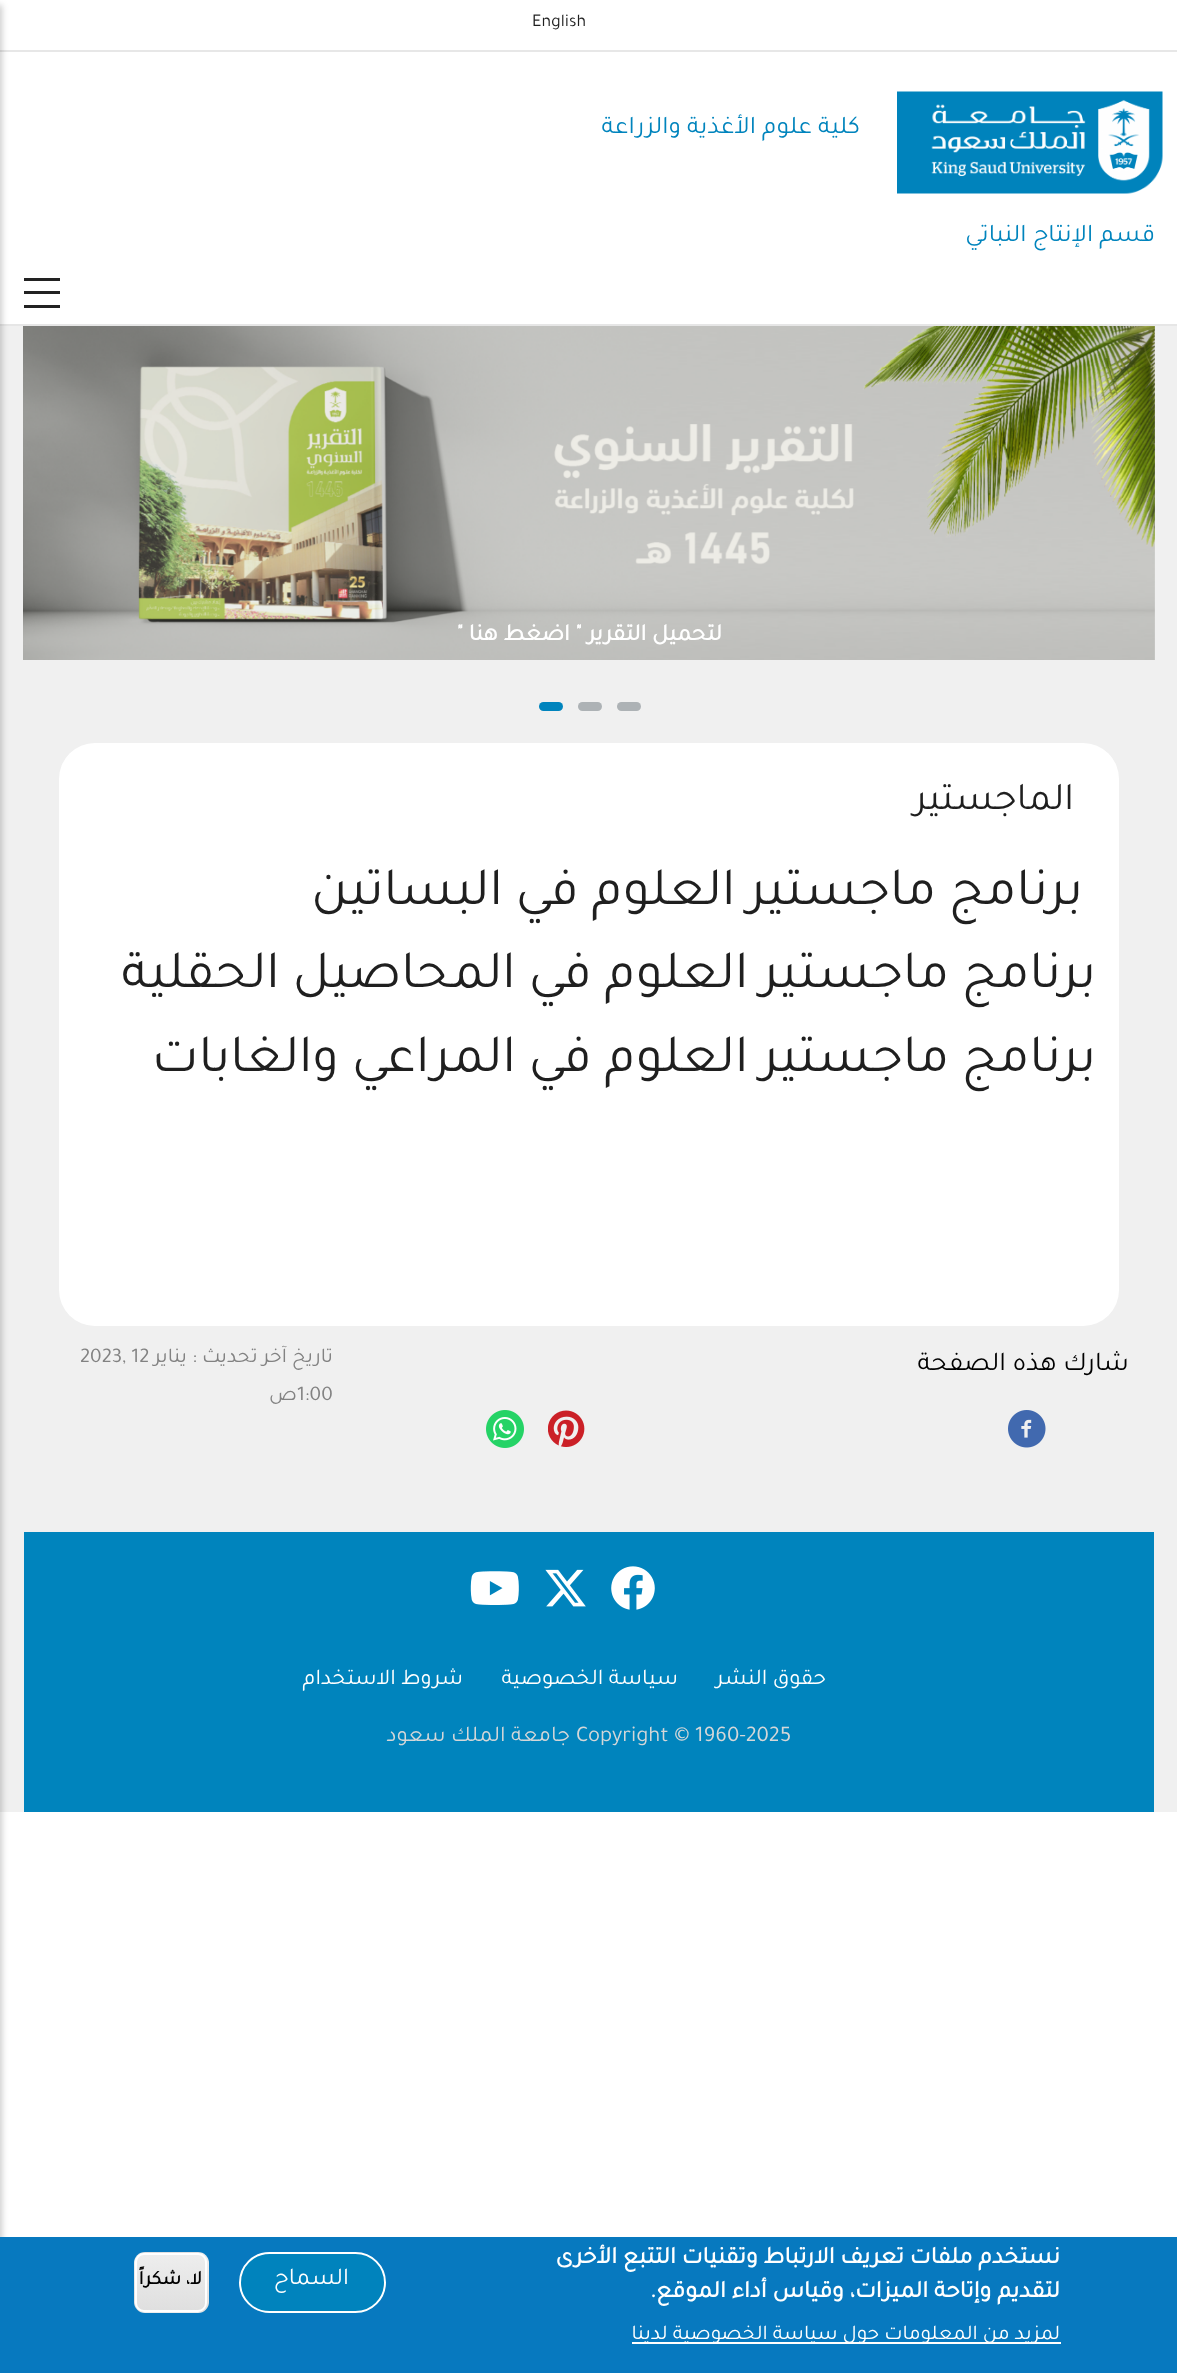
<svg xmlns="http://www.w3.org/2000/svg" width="1177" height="2373">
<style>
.a{font:18px Tajawal;fill:#1f1f1f}
.b{font:25.25px Tajawal;direction:rtl;fill:#0084bd}
.c{font:bold 23.5px Tajawal;direction:rtl;fill:#fff}
.d{font:39px Tajawal;direction:rtl;fill:#1f1f1f}
.e{font:54px Tajawal;direction:rtl;fill:#1f1f1f}
.f{font:27px Tajawal;direction:rtl;fill:#000}
.g{font:21px Tajawal;direction:rtl;fill:#828282}
.h{font:21px Tajawal;fill:#828282}
.i{font:22.5px Tajawal;direction:rtl;fill:#fff}
.j{font:22.5px Tajawal;fill:#d5d7d8}
.k{font:22.5px Tajawal;direction:rtl;fill:#d5d7d8}
.l{font:bold 24px Tajawal;direction:rtl;fill:#fff}
.m{font:21px Tajawal;direction:rtl;fill:#fff}
.n{font:24px Tajawal;direction:rtl;fill:#fff}
.o{font:bold 19.5px Tajawal;direction:rtl;fill:#000}
</style>
<defs>
<clipPath id="clip1"><rect x="134" y="2252" width="75" height="61" rx="11"/></clipPath>
<linearGradient id="g1" gradientUnits="userSpaceOnUse" x1="171" y1="2195" x2="171" y2="2253"><stop offset="0.05" stop-color="#ededed"/><stop offset="1" stop-color="#dfdfdf"/></linearGradient>
<linearGradient id="g2" gradientUnits="userSpaceOnUse" x1="171" y1="2253" x2="171" y2="2312"><stop offset="0.05" stop-color="#ededed"/><stop offset="1" stop-color="#dfdfdf"/></linearGradient>
<linearGradient id="g3" gradientUnits="userSpaceOnUse" x1="171" y1="2312" x2="171" y2="2370"><stop offset="0.05" stop-color="#ededed"/><stop offset="1" stop-color="#dfdfdf"/></linearGradient>
</defs>
<rect width="100%" height="100%" fill="#fff"/>
<path fill="#f0f0f0" d="M0 326h1177v1486H0z"/>
<path fill="#e6e6e6" d="M0 324h1177v2H0z"/>
<path fill="#e7e7e7" d="M0 50h1177v2H0z"/>
<image href="1.png" x="897" y="91" width="266" height="103"/>
<path fill="#222" d="M24 278h36v3H24z"/>
<path fill="#222" d="M24 291h36v3H24z"/>
<path fill="#222" d="M24 305h36v3H24z"/>
<path fill="#00000033" filter="blur(3px)" d="M-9 5h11v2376H-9z"/>
<image href="2.png" x="23" y="326" width="1132" height="334"/>
<rect fill="#adb2b5" x="617" y="702" width="24" height="9" rx="4.5"/>
<rect fill="#adb2b5" x="578" y="702" width="24" height="9" rx="4.5"/>
<rect fill="#0084bd" x="539" y="702" width="24" height="9" rx="4.5"/>
<rect fill="#fff" x="59" y="743" width="1060" height="583" rx="36"/>
<image href="3.png" x="1008" y="1410" width="38" height="38"/>
<image href="4.png" x="548" y="1410" width="37" height="37"/>
<image href="5.png" x="486" y="1410" width="38" height="38"/>
<path fill="#0084bd" d="M24 1532h1130v280H24z"/>
<image href="6.png" x="611" y="1566" width="44" height="44"/>
<image href="7.png" x="545" y="1569" width="41" height="38"/>
<image href="8.png" x="470" y="1571" width="49" height="34"/>
<path fill="#0779bf" d="M0 2237h1177v136H0z"/>
<path fill="#fff" d="M632 2342h429v2H632z"/>
<rect fill="#0083bd" stroke="#fff" stroke-width="2" x="240" y="2253" width="145" height="59" rx="29.5"/>
<g clip-path="url(#clip1)">
<path fill="url(#g1)" d="M134 2252h75v1H134z"/>
<path fill="url(#g2)" d="M134 2253h75v59H134z"/>
<path fill="url(#g3)" d="M134 2312h75v1H134z"/>
</g>
<rect fill="none" stroke="#fff" stroke-width="2" x="136" y="2254" width="70" height="57" rx="8"/>
<text class="a" x="532" y="26">English</text>
<text class="b" x="860" y="133">كلية علوم الأغذية والزراعة</text>
<text class="b" x="1155" y="241">قسم الإنتاج النباتي</text>
<text class="c" x="722" y="640">لتحميل التقرير " اضغط هنا "</text>
<text class="d" x="1074" y="809">الماجستير</text>
<text class="e" x="1083" y="904">برنامج ماجستير العلوم في البساتين</text>
<text class="e" x="1096" y="987">برنامج ماجستير العلوم في المحاصيل الحقلية</text>
<text class="e" x="1096" y="1071">برنامج ماجستير العلوم في المراعي والغابات</text>
<text class="f" x="1129" y="1370">شارك هذه الصفحة</text>
<text class="g" x="333" y="1362">تاريخ آخر تحديث :</text>
<text class="g" x="187" y="1362">يناير</text>
<text class="h" x="80" y="1362">2023, 12</text>
<text class="h" x="297" y="1400">1:00</text>
<text class="g" x="297" y="1400">ص</text>
<text class="i" x="826" y="1684">حقوق النشر</text>
<text class="i" x="678" y="1684">سياسة الخصوصية</text>
<text class="i" x="463" y="1684">شروط الاستخدام</text>
<text class="j" x="576" y="1741">Copyright © 1960-2025</text>
<text class="k" x="570" y="1741">جامعة الملك سعود</text>
<text class="l" x="1060" y="2263">نستخدم ملفات تعريف الارتباط وتقنيات التتبع الأخرى</text>
<text class="l" x="1060" y="2297">لتقديم وإتاحة الميزات، وقياس أداء الموقع.</text>
<text class="m" x="1060" y="2339">لمزيد من المعلومات حول سياسة الخصوصية لدينا</text>
<text class="n" x="349" y="2284">السماح</text>
<text class="o" x="202" y="2284">لا، شكراً</text>
</svg>
